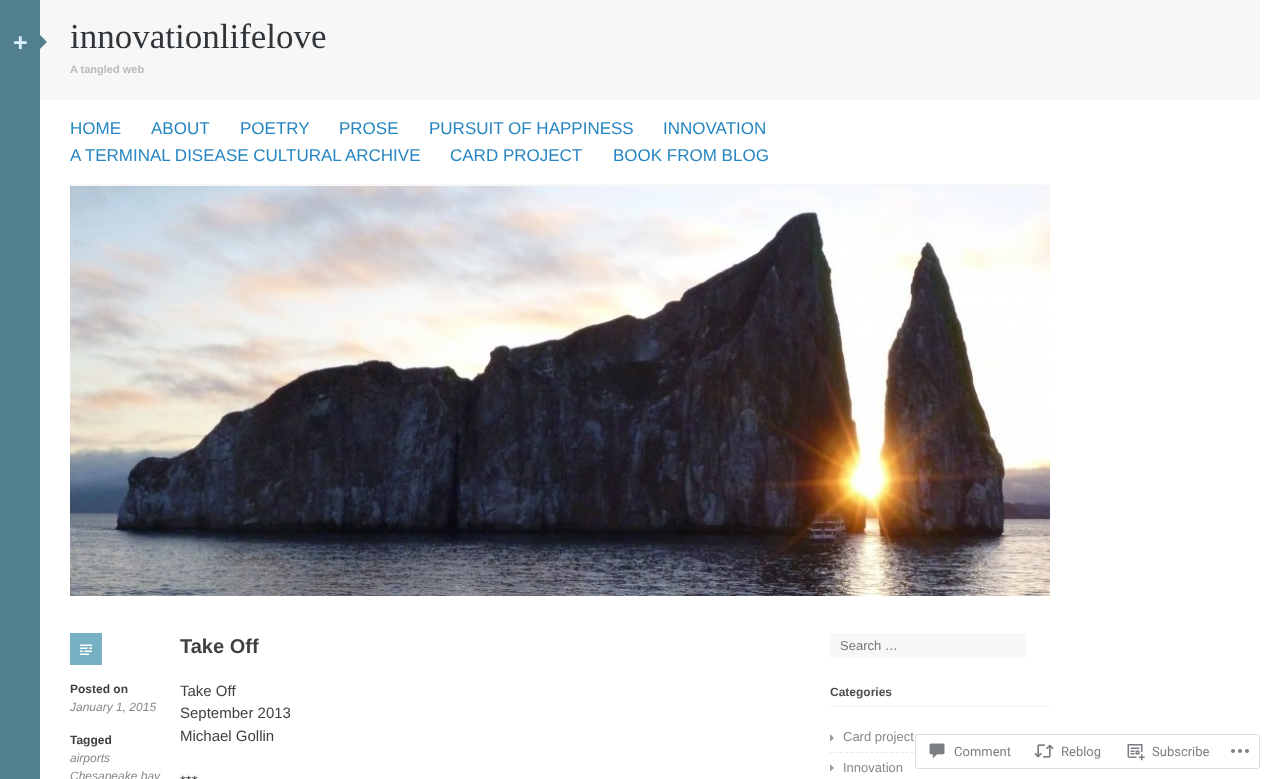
<svg xmlns="http://www.w3.org/2000/svg" width="1270" height="779">
<style>
.a{font:bold 25px Liberation Sans;fill:#d8f1fa}
.b{font:35px Liberation Serif;fill:#30353a}
.c{font:bold 11px Liberation Sans;fill:#bbb}
.d{font:17px Liberation Sans;fill:#2786c2}
.e{font:bold 20px Liberation Sans;fill:#404040}
.f{font:bold 12px Liberation Sans;fill:#404040}
.g{font:italic 12px Liberation Sans;fill:#878789}
.h{font:15px Liberation Sans;fill:#404040}
.i{font:13px Liberation Sans;fill:#757575}
.j{font:bold 12px Liberation Sans;fill:#4d4d4f}
.k{font:13px Liberation Sans;fill:#878789}
.l{font:13px Roboto;fill:#7b7f84}
</style>
<rect width="100%" height="100%" fill="#527f8d"/>
<path fill="#fff" d="M40 0h1230v779H40z"/>
<path fill="#f7f7f7" d="M40 0h1220v100H40z"/>
<path fill="#527f8d" d="M40 49v-14l7 7z"/>
<path fill="#f7f7f8" d="M70 184h980v2H70z"/>
<image href="1.png" x="70" y="186" width="980" height="410"/>
<path fill="#77b0c3" d="M70 633h32v32H70z"/>
<image href="2.png" x="80" y="644" width="12" height="11"/>
<path fill="#f7f7f7" d="M830 633h196v25H830z"/>
<path fill="#f7f7f7" d="M830 705h220v2H830z"/>
<path fill="none" stroke="#e7e7e7" stroke-dasharray="3 2.05" d="M830 752.5h220"/>
<path fill="#9a9a9b" d="M830 741.5l4-3.5l-4-4z"/>
<path fill="#9a9a9b" d="M830 771.5l4-3.5l-4-4z"/>
<rect fill="#fffffffa" stroke="#dddddf" x="915.5" y="734.5" width="344" height="34" rx="2.5"/>
<image href="3.png" x="929" y="743" width="16" height="16"/>
<image href="4.png" x="1034" y="744" width="20" height="14"/>
<image href="5.png" x="1127" y="744" width="18" height="17"/>
<image href="6.png" x="1231" y="749" width="18" height="4"/>
<text class="a" x="13" y="51">+</text>
<text class="b" x="70" y="48">innovationlifelove</text>
<text class="c" x="70" y="73">A tangled web</text>
<text class="d" x="70" y="134">HOME</text>
<text class="d" x="151" y="134">ABOUT</text>
<text class="d" x="240" y="134">POETRY</text>
<text class="d" x="339" y="134">PROSE</text>
<text class="d" x="429" y="134">PURSUIT OF HAPPINESS</text>
<text class="d" x="663" y="134">INNOVATION</text>
<text class="d" x="70" y="161">A TERMINAL DISEASE CULTURAL ARCHIVE</text>
<text class="d" x="450" y="161">CARD PROJECT</text>
<text class="d" x="613" y="161">BOOK FROM BLOG</text>
<text class="e" x="180" y="653">Take Off</text>
<text class="f" x="70" y="693">Posted on</text>
<text class="g" x="70" y="711">January 1, 2015</text>
<text class="f" x="70" y="744">Tagged</text>
<text class="g" x="70" y="762">airports</text>
<text class="g" x="70" y="780">Chesapeake bay</text>
<text class="h" x="180" y="696">Take Off</text>
<text class="h" x="180" y="718">September 2013</text>
<text class="h" x="180" y="741">Michael Gollin</text>
<text class="h" x="180" y="786">***</text>
<text class="i" x="840" y="650">Search …</text>
<text class="j" x="830" y="696">Categories</text>
<text class="k" x="843" y="741">Card project</text>
<text class="k" x="843" y="772">Innovation</text>
<text class="l" x="954" y="756">Comment</text>
<text class="l" x="1061" y="756">Reblog</text>
<text class="l" x="1152" y="756">Subscribe</text>
</svg>
